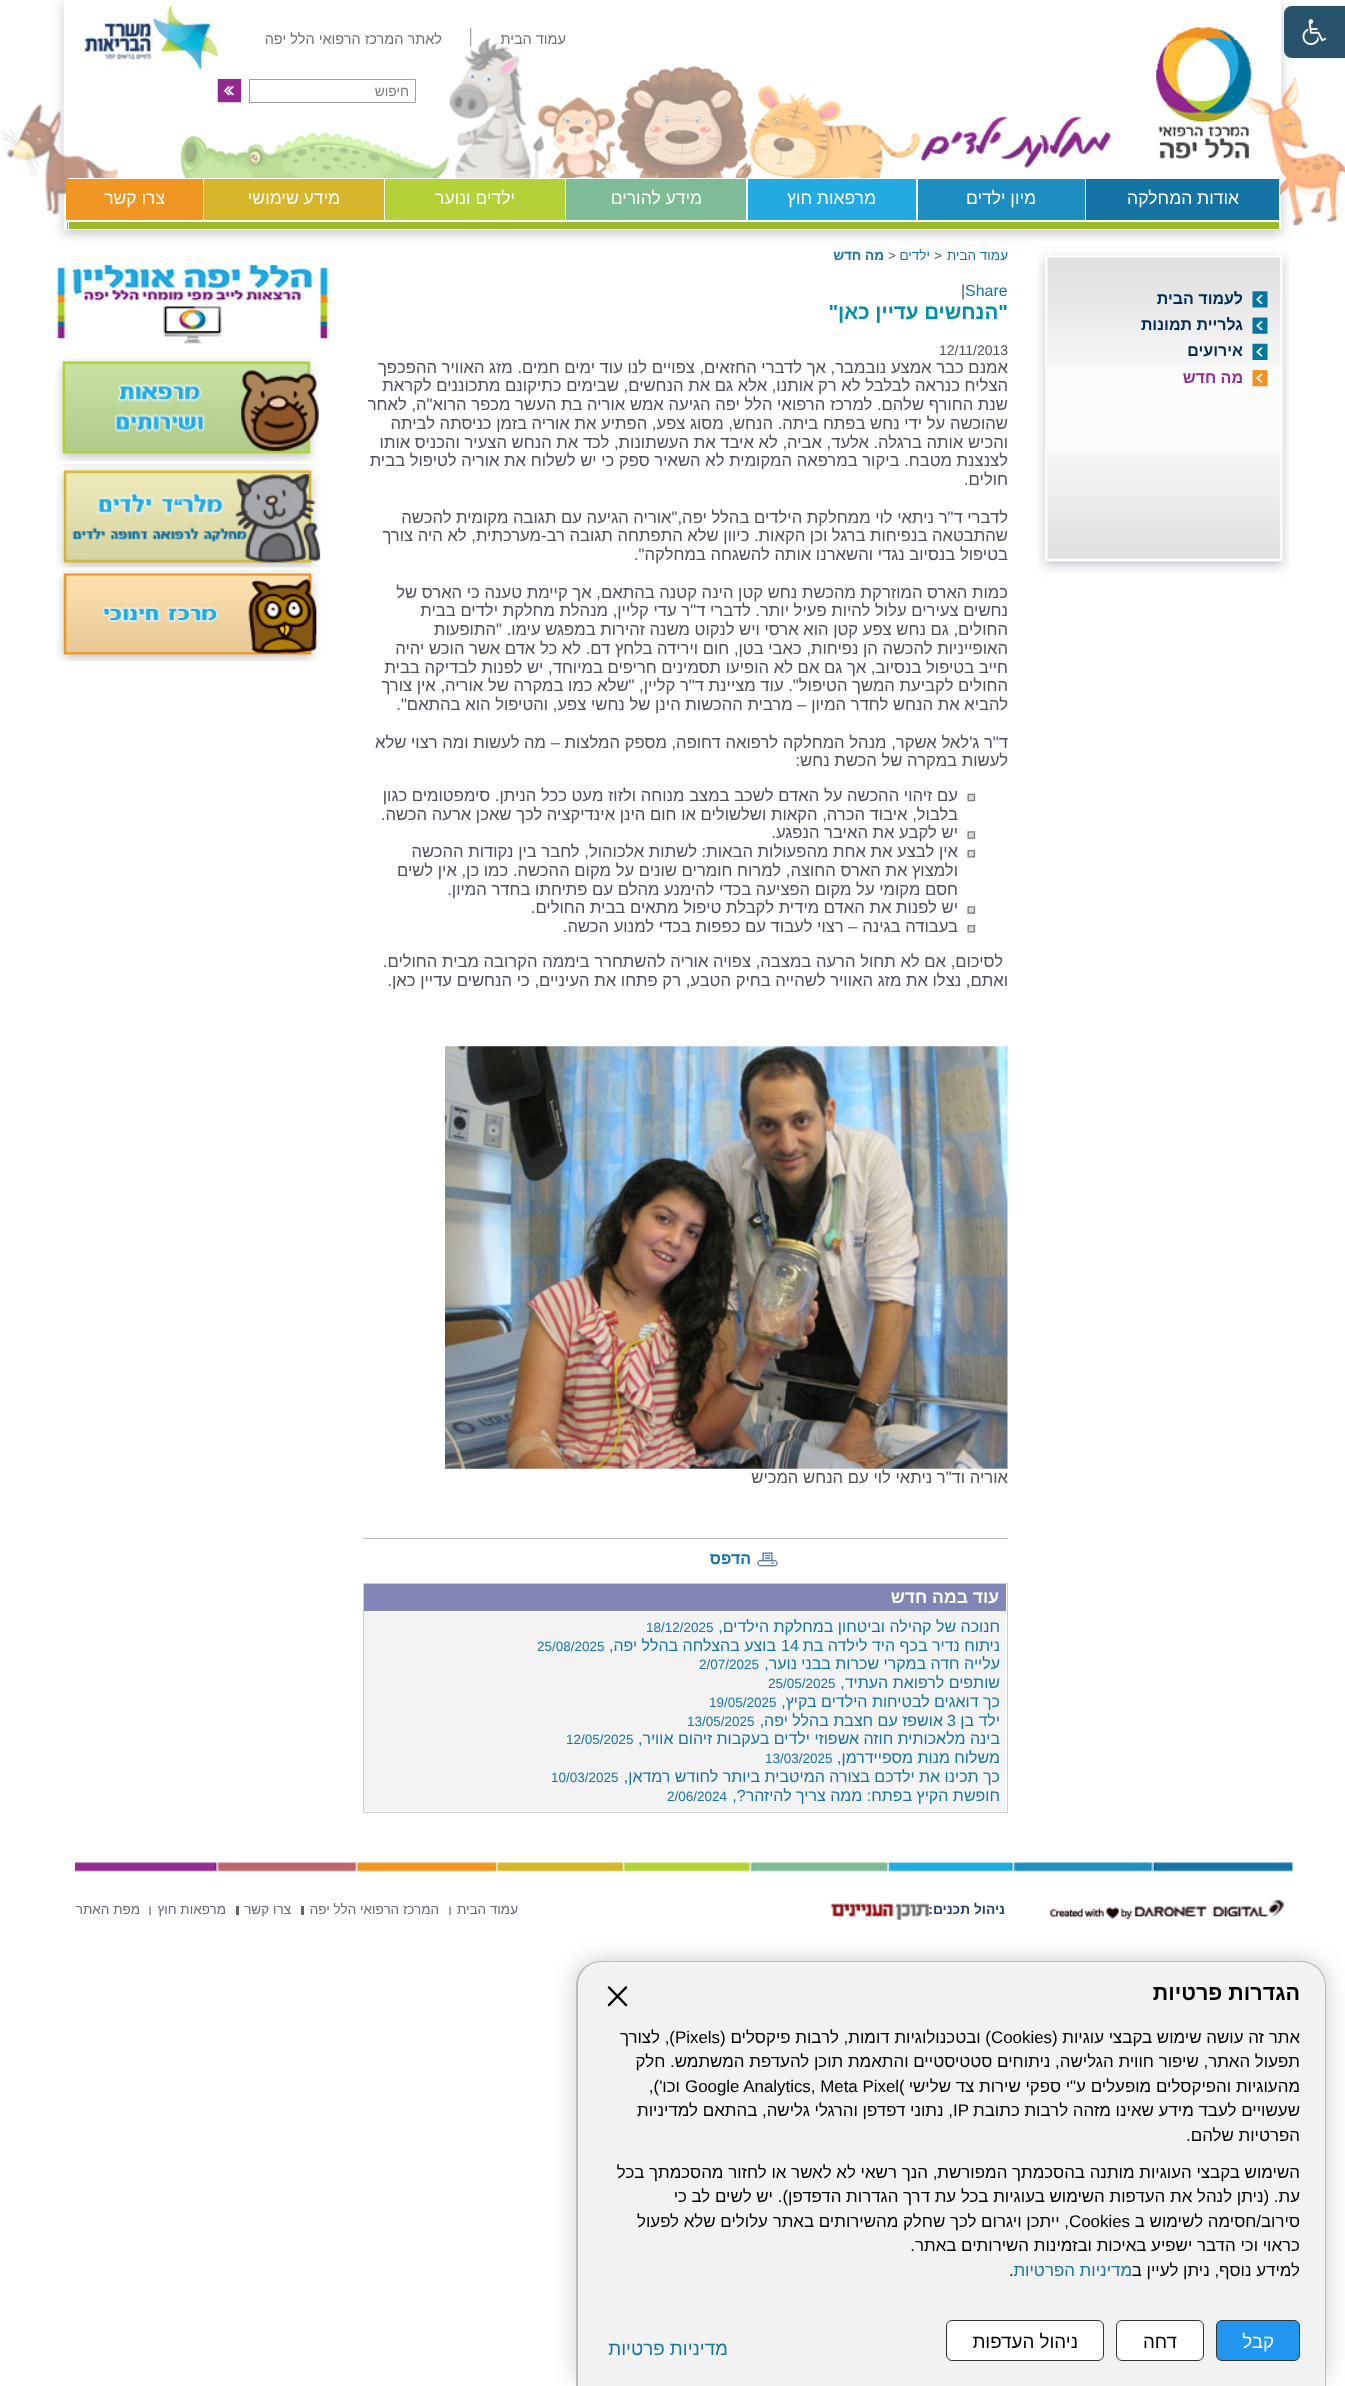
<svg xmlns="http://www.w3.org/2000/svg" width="1345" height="2386">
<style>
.a{font:14.5px Liberation Sans;direction:rtl;fill:#71706c}
.b{font:13.75px Liberation Sans;direction:rtl;fill:#7d7d7e}
.c{font:17.5px Liberation Sans;direction:rtl;fill:#fff}
.d{font:bold 16px Liberation Sans;direction:rtl;fill:#002d57}
.e{font:bold 16px Liberation Sans;direction:rtl;fill:#952c90}
.f{font:13.5px Liberation Sans;direction:rtl;fill:#1674a4}
.g{font:13.5px Liberation Sans;fill:#4d515b}
.h{font:bold 13.5px Liberation Sans;direction:rtl;fill:#1674a4}
.i{font:16px Liberation Sans;fill:#1674a4}
.j{font:16px Liberation Sans;fill:#4d515b}
.k{font:bold 20.5px Liberation Sans;direction:rtl;fill:#008faa}
.l{font:14px Liberation Sans;fill:#4d515b}
.m{font:16.65px Liberation Sans;direction:rtl;fill:#4d515b}
.n{font:bold 16px Liberation Sans;direction:rtl;fill:#1674a4}
.o{font:bold 17.5px Liberation Sans;direction:rtl;fill:#fff}
.p{font:16px Liberation Sans;direction:rtl;fill:#1674a4}
.q{font:13.5px Liberation Sans;fill:#1674a4}
.r{font:bold 13.75px Liberation Sans;direction:rtl;fill:#1f3f7a}
.s{font:13.5px Liberation Sans;direction:rtl;fill:#626875}
.t{font:bold 21.5px Liberation Sans;direction:rtl;fill:#000}
.u{font:16.9px Liberation Sans;direction:rtl;fill:#000}
.v{font:16.9px Liberation Sans;fill:#000}
.w{font:16.9px Liberation Sans;direction:rtl;fill:#1674a4}
.x{font:18.75px Liberation Sans;direction:rtl;fill:#fff}
.y{font:18.75px Liberation Sans;direction:rtl;fill:#000}
.z{font:18.75px Liberation Sans;direction:rtl;fill:#1674a4}
</style>
<rect width="100%" height="100%" fill="#fff"/>
<image href="2.png" x="1" y="0" width="1344" height="241"/>
<path fill="#29536c" d="M1292 6h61v52h-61c-4.5 0-8-3.5-8-8v-36c0-4.5 3.5-8 8-8z"/>
<image href="1.png" x="1302" y="19" width="25" height="26"/>
<image href="3.png" x="470" y="27" width="2" height="20"/>
<path fill="none" stroke="#a0a0a0" d="M249.5 79.5h166v23H249.5z"/>
<image href="4.png" x="217" y="78" width="25" height="25"/>
<path fill="#fff" d="M69 179h1210v43H69z"/>
<path fill="#9dba2a" d="M67 222h1213v7H67z"/>
<path fill="none" stroke="#fff" d="M68.5 178.5h1211v51H68.5z"/>
<path fill="#1674a4" d="M1086 179h193v41H1086z"/>
<path fill="#1e8ec0" d="M918 179h167v41H918z"/>
<path fill="#23aae1" d="M748 179h168v41H748z"/>
<path fill="#7ebc98" d="M566 179h180v41H566z"/>
<path fill="#b3d237" d="M385 179h180v41H385z"/>
<path fill="#d5b62c" d="M204 179h180v41H204z"/>
<path fill="#f09623" d="M66 179h137v41H66z"/>
<image href="5.png" x="1037" y="247" width="253" height="330"/>
<image href="6.png" x="1037" y="452" width="253" height="124"/>
<image href="7.png" x="1037" y="247" width="253" height="119"/>
<image href="8.png" x="1252" y="291" width="16" height="17"/>
<image href="9.png" x="1252" y="317" width="16" height="17"/>
<image href="10.png" x="1252" y="343" width="16" height="17"/>
<image href="11.png" x="1252" y="369" width="16" height="18"/>
<image href="12.png" x="967" y="793" width="9" height="9"/>
<image href="13.png" x="967" y="831" width="9" height="8"/>
<image href="14.png" x="967" y="849" width="9" height="9"/>
<image href="13.png" x="967" y="906" width="9" height="8"/>
<image href="14.png" x="967" y="924" width="9" height="9"/>
<image href="15.png" x="445" y="1046" width="563" height="423"/>
<path fill="#bcbcbc" d="M363 1538h645v1H363z"/>
<image href="16.png" x="757" y="1552" width="21" height="15"/>
<path fill="none" stroke="#ccc" d="M363.5 1583.5h644v229H363.5z"/>
<path fill="#8286b6" d="M364 1584h642v27H364z"/>
<path fill="#f3f3f3" d="M364 1611h642v200H364z"/>
<image href="17.png" x="56" y="264" width="273" height="80"/>
<image href="18.png" x="55" y="357" width="264" height="105"/>
<image href="19.png" x="56" y="464" width="265" height="104"/>
<image href="20.png" x="56" y="570" width="265" height="92"/>
<image href="21.png" x="75" y="1862" width="1218" height="11"/>
<image href="22.png" x="1050" y="1899" width="234" height="20"/>
<image href="23.png" x="830" y="1903" width="100" height="17"/>
<image href="24.png" x="449" y="1906" width="2" height="9"/>
<path fill="#666" d="M301 1906h3v9H301z"/>
<path fill="#666" d="M236 1906h3v9H236z"/>
<image href="24.png" x="149" y="1906" width="2" height="9"/>
<rect fill="#00000033" filter="blur(12.5px)" x="576" y="1961" width="750" height="425" rx="25"/>
<path fill="#f2f2f2" d="M601 1961h700c14 0 25 11 25 25v400h-750v-400c0-14 11-25 25-25z"/>
<path fill="#bbb" fill-rule="evenodd" d="M601 1961h700c14 0 25 11 25 25v400h-750v-400c0-14 11-25 25-25zm0 1h700c13 0 24 11 24 24v400h-747v-400c0-13 10-24 23-24z"/>
<path fill="none" stroke="#000" stroke-width="2.5" stroke-linecap="round" stroke-linejoin="round" d="M609 1987.5l17 17.5m-17 0l17-17.5"/>
<rect fill="#2196f3" stroke="#333" x="1216.5" y="2320.5" width="83" height="40" rx="5.5"/>
<rect fill="#fff" stroke="#333" x="1116.5" y="2320.5" width="87" height="40" rx="5.5"/>
<rect fill="#fff" stroke="#333" x="946.5" y="2320.5" width="157" height="40" rx="5.5"/>
<text class="a" x="566" y="44">עמוד הבית</text>
<text class="a" x="442" y="44">לאתר המרכז הרפואי הלל יפה</text>
<text class="b" x="409" y="96">חיפוש</text>
<text class="c" x="1239" y="204">אודות המחלקה</text>
<text class="c" x="1036" y="204">מיון ילדים</text>
<text class="c" x="876" y="204">מרפאות חוץ</text>
<text class="c" x="702" y="204">מידע להורים</text>
<text class="c" x="515" y="204">ילדים ונוער</text>
<text class="c" x="340" y="204">מידע שימושי</text>
<text class="c" x="165" y="204">צרו קשר</text>
<text class="d" x="1243" y="304">לעמוד הבית</text>
<text class="d" x="1243" y="330">גלריית תמונות</text>
<text class="d" x="1243" y="356">אירועים</text>
<text class="e" x="1243" y="383">מה חדש</text>
<text class="f" x="1008" y="260">עמוד הבית</text>
<text class="g" x="934" y="260">&gt;</text>
<text class="f" x="930" y="260">ילדים</text>
<text class="g" x="888" y="260">&gt;</text>
<text class="h" x="884" y="260">מה חדש</text>
<text class="i" x="965" y="296">Share</text>
<text class="j" x="961" y="296">|</text>
<text class="k" x="1008" y="319">"הנחשים עדיין כאן"</text>
<text class="l" x="939" y="355">12/11/2013</text>
<text class="m" x="1008" y="373">אמנם כבר אמצע נובמבר, אך לדברי החזאים, צפויים לנו עוד ימים חמים. מזג האוויר ההפכפך</text>
<text class="m" x="1008" y="391">הצליח כנראה לבלבל לא רק אותנו, אלא גם את הנחשים, שבימים כתיקונם מתכוננים לקראת</text>
<text class="m" x="1008" y="410">שנת החורף שלהם. למרכז הרפואי הלל יפה הגיעה אמש אוריה בת העשר מכפר הרוא"ה, לאחר</text>
<text class="m" x="1008" y="429">שהוכשה על ידי נחש בפתח ביתה. הנחש, מסוג צפע, הפתיע את אוריה בזמן כניסתה לביתה</text>
<text class="m" x="1008" y="448">והכיש אותה ברגלה. אלעד, אביה, לא איבד את העשתונות, לכד את הנחש הצעיר והכניס אותו</text>
<text class="m" x="1008" y="466">לצנצנת מטבח. ביקור במרפאה המקומית לא השאיר ספק כי יש לשלוח את אוריה לטיפול בבית</text>
<text class="m" x="1008" y="485">חולים.</text>
<text class="m" x="1008" y="523">לדברי ד"ר ניתאי לוי ממחלקת הילדים בהלל יפה,"אוריה הגיעה עם תגובה מקומית להכשה</text>
<text class="m" x="1008" y="541">שהתבטאה בנפיחות ברגל וכן הקאות. כיוון שלא התפתחה תגובה רב-מערכתית, לא היה צורך</text>
<text class="m" x="1008" y="560">בטיפול בנסיוב נגדי והשארנו אותה להשגחה במחלקה".</text>
<text class="m" x="1008" y="598">כמות הארס המוזרקת מהכשת נחש קטן הינה קטנה בהתאם, אך קיימת טענה כי הארס של</text>
<text class="m" x="1008" y="616">נחשים צעירים עלול להיות פעיל יותר. לדברי ד"ר עדי קליין, מנהלת מחלקת ילדים בבית</text>
<text class="m" x="1008" y="635">החולים, גם נחש צפע קטן הוא ארסי ויש לנקוט משנה זהירות במפגש עימו. "התופעות</text>
<text class="m" x="1008" y="654">האופייניות להכשה הן נפיחות, כאבי בטן, חום וירידה בלחץ דם. לא כל אדם אשר הוכש יהיה</text>
<text class="m" x="1008" y="673">חייב בטיפול בנסיוב, אך גם אם לא הופיעו תסמינים חריפים במיוחד, יש לפנות לבדיקה בבית</text>
<text class="m" x="1008" y="691">החולים לקביעת המשך הטיפול". עוד מציינת ד"ר קליין, "שלא כמו במקרה של אוריה, אין צורך</text>
<text class="m" x="1008" y="710">להביא את הנחש לחדר המיון – מרבית ההכשות הינן של נחשי צפע, והטיפול הוא בהתאם".</text>
<text class="m" x="1008" y="748">ד"ר ג'לאל אשקר, מנהל המחלקה לרפואה דחופה, מספק המלצות – מה לעשות ומה רצוי שלא</text>
<text class="m" x="1008" y="766">לעשות במקרה של הכשת נחש:</text>
<text class="m" x="958" y="801">עם זיהוי ההכשה על האדם לשכב במצב מנוחה ולזוז מעט ככל הניתן. סימפטומים כגון</text>
<text class="m" x="958" y="820">בלבול, איבוד הכרה, הקאות ושלשולים או חום הינן אינדיקציה לכך שאכן ארעה הכשה.</text>
<text class="m" x="958" y="838">יש לקבע את האיבר הנפגע.</text>
<text class="m" x="958" y="857">אין לבצע את אחת מהפעולות הבאות: לשתות אלכוהול, לחבר בין נקודות ההכשה</text>
<text class="m" x="958" y="876">ולמצוץ את הארס החוצה, למרוח חומרים שונים על מקום ההכשה. כמו כן, אין לשים</text>
<text class="m" x="958" y="895">חסם מקומי על מקום הפציעה בכדי להימנע מהלם עם פתיחתו בחדר המיון.</text>
<text class="m" x="958" y="913">יש לפנות את האדם מידית לקבלת טיפול מתאים בבית החולים.</text>
<text class="m" x="958" y="932">בעבודה בגינה – רצוי לעבוד עם כפפות בכדי למנוע הכשה.</text>
<text class="m" x="1003" y="967">לסיכום, אם לא תחול הרעה במצבה, צפויה אוריה להשתחרר ביממה הקרובה מבית החולים.</text>
<text class="m" x="1008" y="986">ואתם, נצלו את מזג האוויר לשהייה בחיק הטבע, רק פתחו את העיניים, כי הנחשים עדיין כאן.</text>
<text class="m" x="1008" y="1483">אוריה וד"ר ניתאי לוי עם הנחש המכיש</text>
<text class="n" x="751" y="1564">הדפס</text>
<text class="o" x="999" y="1603">עוד במה חדש</text>
<text class="p" x="1000" y="1632">חנוכה של קהילה וביטחון במחלקת הילדים,</text>
<text class="q" x="646" y="1632">18/12/2025</text>
<text class="p" x="1000" y="1651">ניתוח נדיר בכף היד לילדה בת</text>
<text class="i" x="781" y="1651">14</text>
<text class="p" x="776" y="1651">בוצע בהצלחה בהלל יפה,</text>
<text class="q" x="537" y="1651">25/08/2025</text>
<text class="p" x="1000" y="1669">עלייה חדה במקרי שכרות בבני נוער,</text>
<text class="q" x="699" y="1669">2/07/2025</text>
<text class="p" x="1000" y="1688">שותפים לרפואת העתיד,</text>
<text class="q" x="768" y="1688">25/05/2025</text>
<text class="p" x="1000" y="1707">כך דואגים לבטיחות הילדים בקיץ,</text>
<text class="q" x="709" y="1707">19/05/2025</text>
<text class="p" x="1000" y="1726">ילד בן</text>
<text class="i" x="947" y="1726">3</text>
<text class="p" x="943" y="1726">אושפז עם חצבת בהלל יפה,</text>
<text class="q" x="687" y="1726">13/05/2025</text>
<text class="p" x="1000" y="1744">בינה מלאכותית חוזה אשפוזי ילדים בעקבות זיהום אוויר,</text>
<text class="q" x="566" y="1744">12/05/2025</text>
<text class="p" x="1000" y="1763">משלוח מנות מספיידרמן,</text>
<text class="q" x="765" y="1763">13/03/2025</text>
<text class="p" x="1000" y="1782">כך תכינו את ילדכם בצורה המיטבית ביותר לחודש רמדאן,</text>
<text class="q" x="551" y="1782">10/03/2025</text>
<text class="p" x="1000" y="1801">חופשת הקיץ בפתח: ממה צריך להיזהר?,</text>
<text class="q" x="667" y="1801">2/06/2024</text>
<text class="r" x="1005" y="1914">ניהול תכנים:</text>
<text class="s" x="518" y="1914">עמוד הבית</text>
<text class="s" x="439" y="1914">המרכז הרפואי הלל יפה</text>
<text class="s" x="291" y="1914">צרו קשר</text>
<text class="s" x="226" y="1914">מרפאות חוץ</text>
<text class="s" x="140" y="1914">מפת האתר</text>
<text class="t" x="1300" y="2000">הגדרות פרטיות</text>
<text class="u" x="1300" y="2043">אתר זה עושה שימוש בקבצי עוגיות (</text>
<text class="v" x="991" y="2043">Cookies</text>
<text class="u" x="991" y="2043">) ובטכנולוגיות דומות, לרבות פיקסלים (</text>
<text class="v" x="675" y="2043">Pixels</text>
<text class="u" x="675" y="2043">), לצורך</text>
<text class="u" x="1300" y="2067">תפעול האתר, שיפור חווית הגלישה, ניתוחים סטטיסטיים והתאמת תוכן להעדפת המשתמש. חלק</text>
<text class="u" x="1300" y="2092">מהעוגיות והפיקסלים מופעלים ע"י ספקי שירות צד שלישי</text>
<text class="v" x="685" y="2092">Google Analytics, Meta Pixel(</text>
<text class="u" x="680" y="2092">וכו'),</text>
<text class="u" x="1300" y="2116">שעשויים לעבד מידע שאינו מזהה לרבות כתובת</text>
<text class="v" x="953" y="2116">IP</text>
<text class="u" x="953" y="2116">, נתוני דפדפן והרגלי גלישה, בהתאם למדיניות</text>
<text class="u" x="1300" y="2141">הפרטיות שלהם.</text>
<text class="u" x="1300" y="2178">השימוש בקבצי העוגיות מותנה בהסכמתך המפורשת, הנך רשאי לא לאשר או לחזור מהסכמתך בכל</text>
<text class="u" x="1300" y="2202">עת. (ניתן לנהל את העדפות השימוש בעוגיות בכל עת דרך הגדרות הדפדפן). יש לשים לב כי</text>
<text class="u" x="1300" y="2227">סירוב/חסימה לשימוש ב</text>
<text class="v" x="1069" y="2227">Cookies</text>
<text class="u" x="1069" y="2227">, ייתכן ויגרום לכך שחלק מהשירותים באתר עלולים שלא לפעול</text>
<text class="u" x="1300" y="2251">כראוי וכי הדבר ישפיע באיכות ובזמינות השירותים באתר.</text>
<text class="u" x="1300" y="2276">למידע נוסף, ניתן לעיין ב</text>
<text class="w" x="1132" y="2276">מדיניות הפרטיות</text>
<text class="v" x="1009" y="2276">.</text>
<text class="x" x="1274" y="2348">קבל</text>
<text class="y" x="1177" y="2348">דחה</text>
<text class="y" x="1078" y="2348">ניהול העדפות</text>
<text class="z" x="728" y="2355">מדיניות פרטיות</text>
</svg>
